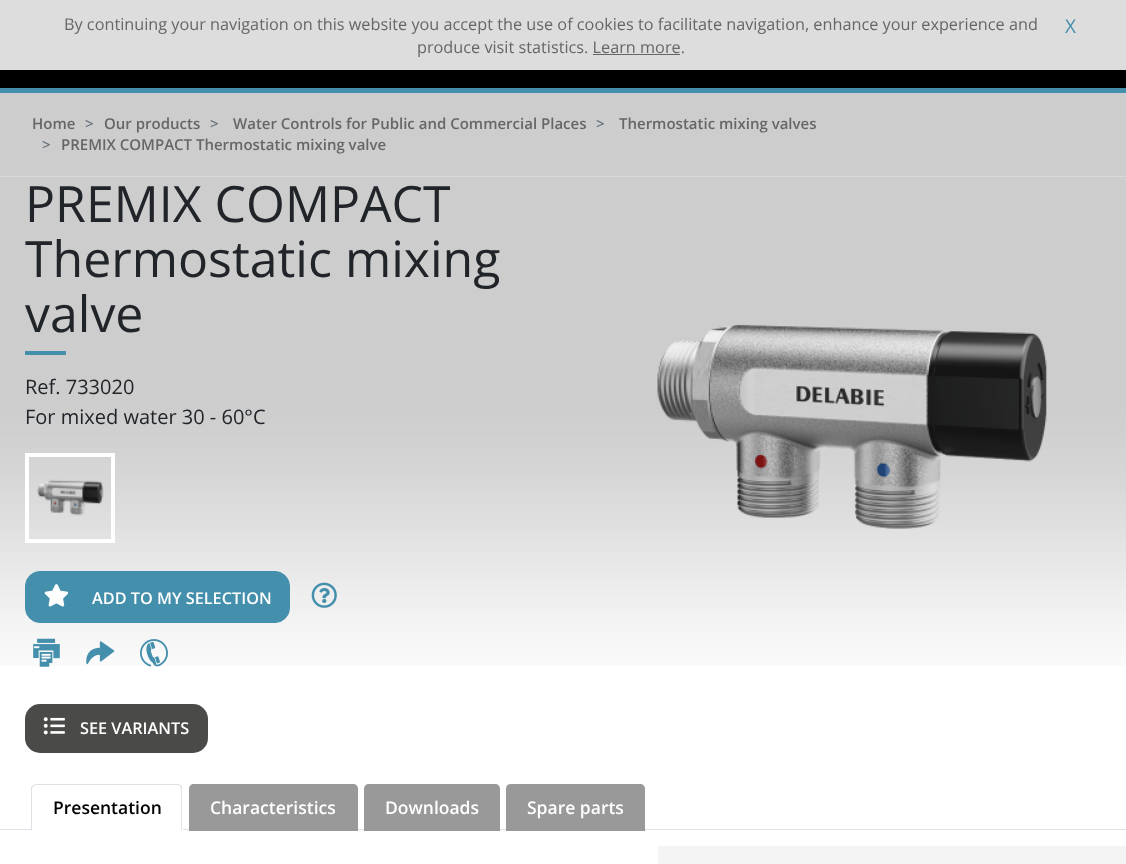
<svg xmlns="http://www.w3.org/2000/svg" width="1126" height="864">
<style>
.a{font:16.25px Open Sans;fill:#666}
.b{font:19px Open Sans;fill:#438fac}
.c{font:600 15px Open Sans;fill:#666}
.d{font:600 15px Open Sans;fill:#6c757d}
.e{font:50px Open Sans;fill:#212529}
.f{font:20px Open Sans;fill:#212529}
.g{font:600 16.25px Open Sans;fill:#fff}
.h{font:600 17.5px Open Sans;fill:#000}
.i{font:600 17.5px Open Sans;fill:#fff}
</style>
<rect width="100%" height="100%" fill="#000"/>
<path fill="#ddd" d="M0 0h1126v70H0z"/>
<path fill="#666" d="M593 54h87v1H593z"/>
<path fill="#438fac" d="M0 88h1126v5H0z"/>
<path fill="#cdcdcd" d="M0 93h1126v83H0z"/>
<path fill="#fff" d="M0 176h1126v688H0z"/>
<image href="1.png" x="0" y="176" width="1126" height="490"/>
<path fill="#438fac" d="M25 351h41v4H25z"/>
<path fill="none" stroke="#fff" stroke-width="4" d="M27 455h86v86H27z"/>
<image href="2.png" x="37" y="479" width="67" height="37"/>
<rect fill="#438fac" stroke="#438fac" x="25.5" y="571.5" width="264" height="51" rx="14.5"/>
<image href="3.png" x="44" y="584" width="25" height="23"/>
<image href="4.png" x="311" y="582" width="26" height="26"/>
<image href="5.png" x="33" y="638" width="27" height="29"/>
<image href="6.png" x="86" y="641" width="29" height="24"/>
<image href="7.png" x="140" y="639" width="28" height="28"/>
<rect fill="#4a4a49" x="25" y="704" width="183" height="49" rx="15"/>
<image href="8.png" x="43" y="717" width="22" height="18"/>
<image href="9.png" x="657" y="324" width="390" height="205"/>
<path fill="#dee2e6" d="M0 829h1126v1H0z"/>
<path fill="#fff" d="M36 784h142c3 0 5 2 5 5v42h-152v-42c0-3 2-5 5-5z"/>
<path fill="#dee2e6" d="M36 784l-3 1l1 1l2-1h142l2 1l1-1c-1 0-2-1-3-1z"/>
<path fill="#dee2e6" d="M182 831v-42c0-1 0-3-1-4l-1 1l1 3v41z"/>
<path fill="#fff" d="M182 831h-150v-1h149z"/>
<path fill="#dee2e6" d="M31 787l2-2l1 1c-1 1-2 2-2 3v41l-1 1z"/>
<path fill="#999" d="M194 784h159c3 0 5 2 5 5v42h-169v-42c0-3 2-5 5-5z"/>
<path fill="#999" d="M369 784h126c3 0 5 2 5 5v42h-136v-42c0-3 2-5 5-5z"/>
<path fill="#999" d="M511 784h129c3 0 5 2 5 5v42h-139v-42c0-3 2-5 5-5z"/>
<path fill="#f4f4f4" d="M658 846h468v18H658z"/>
<text class="a" x="64" y="30">By continuing your navigation on this website you accept the use of cookies to facilitate navigation, enhance your experience and</text>
<text class="a" x="417" y="53">produce visit statistics. Learn more.</text>
<text class="b" x="1065" y="33">X</text>
<text class="c" x="32" y="129">Home</text>
<text class="d" x="85" y="129">&gt;</text>
<text class="c" x="104" y="129">Our products</text>
<text class="d" x="210" y="129">&gt;</text>
<text class="c" x="233" y="129">Water Controls for Public and Commercial Places</text>
<text class="d" x="596" y="129">&gt;</text>
<text class="c" x="619" y="129">Thermostatic mixing valves</text>
<text class="d" x="42" y="150">&gt;</text>
<text class="c" x="61" y="150">PREMIX COMPACT Thermostatic mixing valve</text>
<text class="e" x="25" y="222">PREMIX COMPACT</text>
<text class="e" x="25" y="277">Thermostatic mixing</text>
<text class="e" x="25" y="332">valve</text>
<text class="f" x="25" y="394">Ref. 733020</text>
<text class="f" x="25" y="424">For mixed water 30 - 60°C</text>
<text class="g" x="92" y="604">ADD TO MY SELECTION</text>
<text class="g" x="80" y="734">SEE VARIANTS</text>
<text class="h" x="53" y="814">Presentation</text>
<text class="i" x="210" y="814">Characteristics</text>
<text class="i" x="385" y="814">Downloads</text>
<text class="i" x="527" y="814">Spare parts</text>
</svg>
